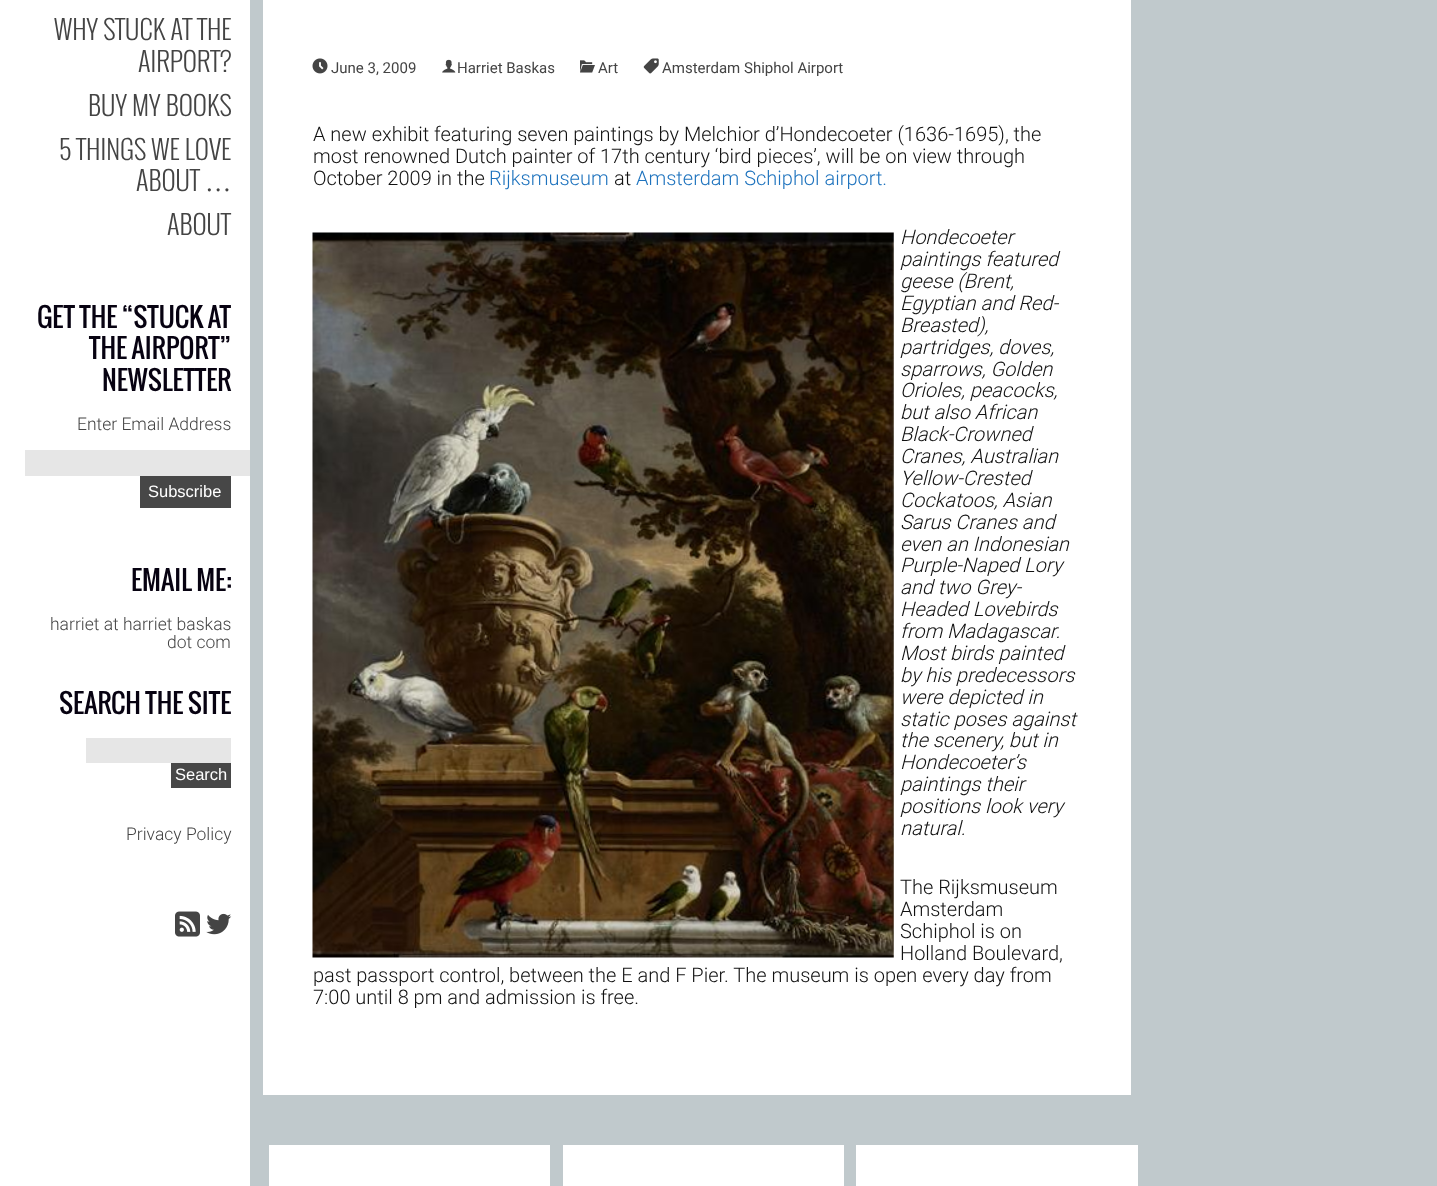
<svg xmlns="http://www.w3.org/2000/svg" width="1437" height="1186">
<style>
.a{font:300 26.25px Oswald;fill:#444}
.b{font:26.25px Liberation Serif;fill:#444}
.c{font:26.25px Oswald;fill:#070211}
.d{font:300 17.5px Roboto;fill:#444}
.e{font:16.5px Liberation Sans;fill:#fff}
.f{font:15px Roboto;fill:#444}
.g{font:300 20px Roboto;fill:#111}
.h{font:300 20px Roboto;fill:#1e73be}
.i{font:italic 300 20px Roboto;fill:#111}
</style>
<rect width="100%" height="100%" fill="#c0c9cc"/>
<path fill="#fff" d="M0 0h250v1186H0z"/>
<path fill="#e6e6e6" d="M25 450h225v26H25z"/>
<path fill="#474747" d="M140 476h91v32H140z"/>
<path fill="#e6e6e6" d="M86 738h145v25H86z"/>
<path fill="#474747" d="M171 763h60v25H171z"/>
<image href="1.png" x="175" y="911" width="25" height="26"/>
<image href="2.png" x="206" y="913" width="26" height="22"/>
<path fill="#fff" d="M263 0h868v1095H263z"/>
<image href="3.png" x="312" y="58" width="16" height="16"/>
<image href="4.png" x="442" y="59" width="14" height="14"/>
<image href="5.png" x="580" y="60" width="15" height="13"/>
<image href="6.png" x="643" y="58" width="16" height="16"/>
<image href="7.png" x="312" y="232" width="582" height="726"/>
<path fill="#fff" d="M269 1145h281v41H269z"/>
<path fill="#fff" d="M563 1145h281v41H563z"/>
<path fill="#fff" d="M856 1145h282v41H856z"/>
<text class="a" x="54" y="40">WHY STUCK AT THE</text>
<text class="a" x="138" y="72">AIRPORT?</text>
<text class="a" x="88" y="116">BUY MY BOOKS</text>
<text class="a" x="59" y="160">5 THINGS WE LOVE</text>
<text class="a" x="136" y="191">ABOUT</text>
<text class="b" x="205" y="191">…</text>
<text class="a" x="167" y="235">ABOUT</text>
<text class="c" x="37" y="328">GET THE “STUCK AT</text>
<text class="c" x="89" y="359">THE AIRPORT”</text>
<text class="c" x="102" y="391">NEWSLETTER</text>
<text class="d" x="77" y="430">Enter Email Address</text>
<text class="e" x="148" y="497">Subscribe</text>
<text class="c" x="131" y="591">EMAIL ME:</text>
<text class="d" x="50" y="630">harriet at harriet baskas</text>
<text class="d" x="167" y="648">dot com</text>
<text class="c" x="59" y="714">SEARCH THE SITE</text>
<text class="e" x="175" y="780">Search</text>
<text class="d" x="126" y="840">Privacy Policy</text>
<text class="f" x="331" y="73">June 3, 2009</text>
<text class="f" x="457" y="73">Harriet Baskas</text>
<text class="f" x="598" y="73">Art</text>
<text class="f" x="662" y="73">Amsterdam Shiphol Airport</text>
<text class="g" x="313" y="141">A new exhibit featuring seven paintings by Melchior d’Hondecoeter (1636-1695), the</text>
<text class="g" x="313" y="163">most renowned Dutch painter of 17th century ‘bird pieces’, will be on view through</text>
<text class="g" x="313" y="185">October 2009 in the</text>
<text class="h" x="489" y="185">Rijksmuseum</text>
<text class="g" x="614" y="185">at</text>
<text class="h" x="636" y="185">Amsterdam Schiphol airport.</text>
<text class="i" x="900" y="244">Hondecoeter</text>
<text class="i" x="900" y="266">paintings featured</text>
<text class="i" x="900" y="288">geese (Brent,</text>
<text class="i" x="900" y="310">Egyptian and Red-</text>
<text class="i" x="900" y="332">Breasted),</text>
<text class="i" x="900" y="354">partridges, doves,</text>
<text class="i" x="900" y="376">sparrows, Golden</text>
<text class="i" x="900" y="397">Orioles, peacocks,</text>
<text class="i" x="900" y="419">but also African</text>
<text class="i" x="900" y="441">Black-Crowned</text>
<text class="i" x="900" y="463">Cranes, Australian</text>
<text class="i" x="900" y="485">Yellow-Crested</text>
<text class="i" x="900" y="507">Cockatoos, Asian</text>
<text class="i" x="900" y="529">Sarus Cranes and</text>
<text class="i" x="900" y="551">even an Indonesian</text>
<text class="i" x="900" y="572">Purple-Naped Lory</text>
<text class="i" x="900" y="594">and two Grey-</text>
<text class="i" x="900" y="616">Headed Lovebirds</text>
<text class="i" x="900" y="638">from Madagascar.</text>
<text class="i" x="900" y="660">Most birds painted</text>
<text class="i" x="900" y="682">by his predecessors</text>
<text class="i" x="900" y="704">were depicted in</text>
<text class="i" x="900" y="726">static poses against</text>
<text class="i" x="900" y="747">the scenery, but in</text>
<text class="i" x="900" y="769">Hondecoeter’s</text>
<text class="i" x="900" y="791">paintings their</text>
<text class="i" x="900" y="813">positions look very</text>
<text class="i" x="900" y="835">natural.</text>
<text class="g" x="900" y="894">The Rijksmuseum</text>
<text class="g" x="900" y="916">Amsterdam</text>
<text class="g" x="900" y="938">Schiphol is on</text>
<text class="g" x="900" y="960">Holland Boulevard,</text>
<text class="g" x="313" y="982">past passport control, between the E and F Pier. The museum is open every day from</text>
<text class="g" x="313" y="1004">7:00 until 8 pm and admission is free.</text>
</svg>
